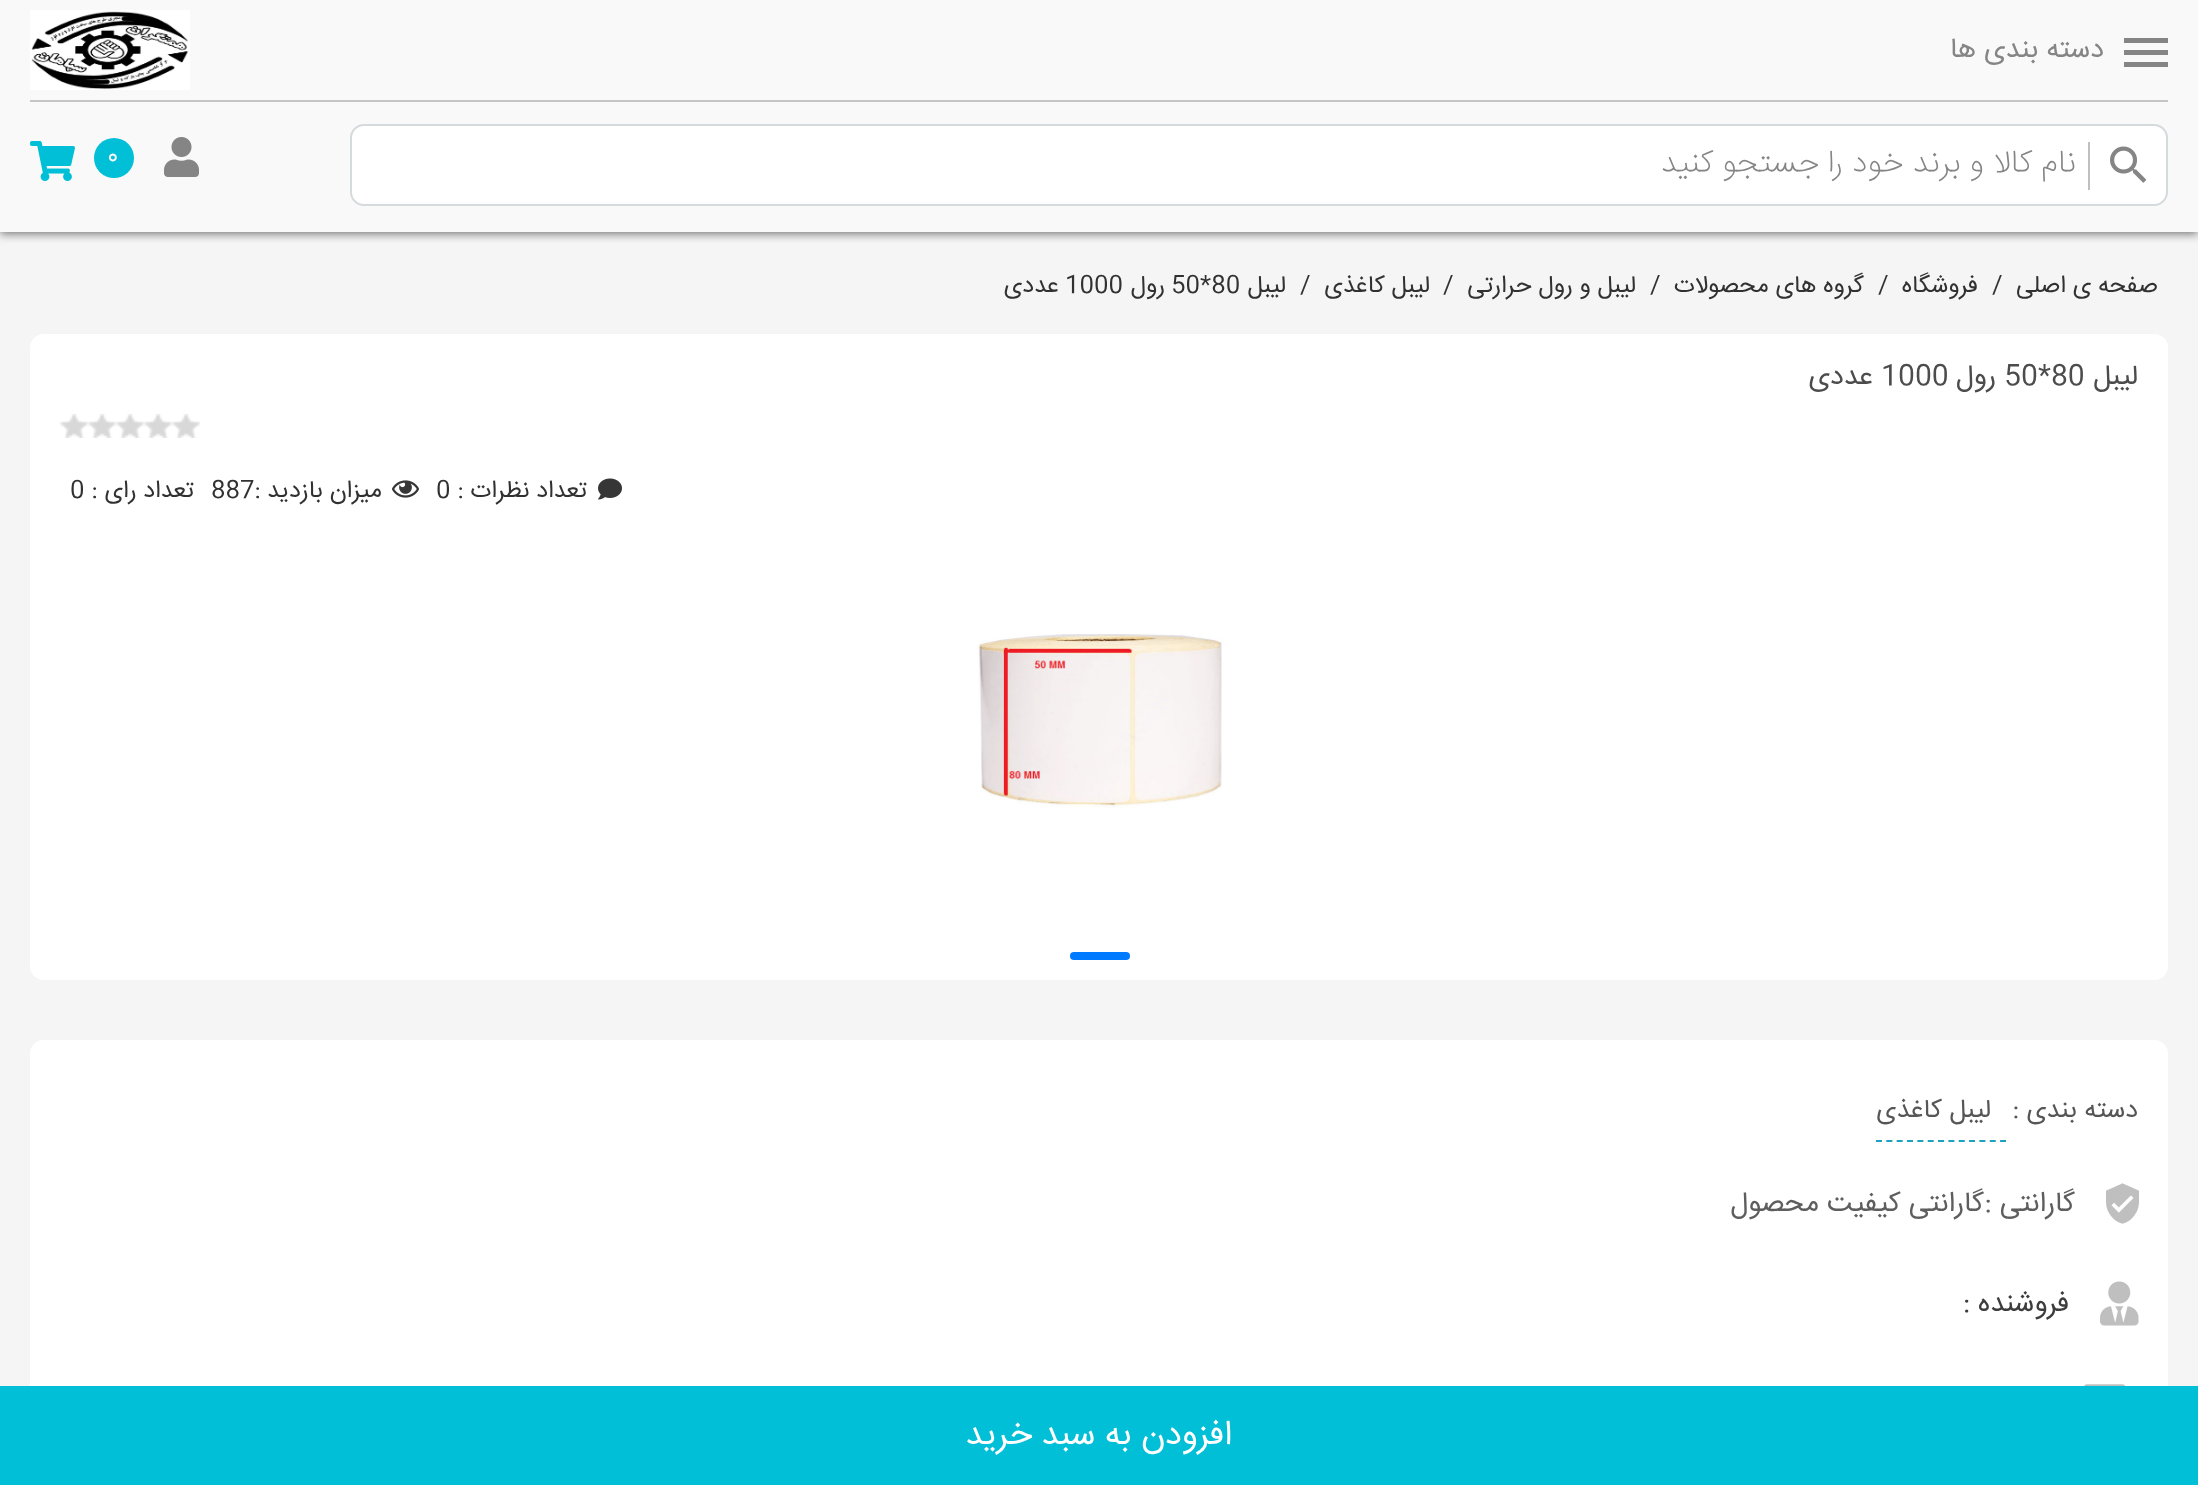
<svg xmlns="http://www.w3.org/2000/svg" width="2198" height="1485">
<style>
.a{font:28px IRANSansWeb;direction:rtl;fill:#858585}
.b{font:200 32px IRANSansWeb;direction:rtl;fill:#858585}
.c{font:24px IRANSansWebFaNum;fill:#fff}
.d{font:24px IRANSansWeb;direction:rtl;fill:#313131}
.e{font:24px IRANSansWeb;fill:#313131}
.f{font:28px IRANSansWeb;direction:rtl;fill:#4c4c4c}
.g{font:28px IRANSansWeb;fill:#4c4c4c}
.h{font:26px IRANSansWeb;direction:rtl;fill:#565656}
.i{font:28px IRANSansWebFaNum;direction:rtl;fill:#5e5e5e}
.j{font:28px IRANSansWeb;direction:rtl;fill:#3d3d3d}
.k{font:34px IRANSansWeb;direction:rtl;fill:#fff}
</style>
<rect width="100%" height="100%" fill="#f5f5f5"/>
<path fill="#747474" filter="blur(5px)" d="M0 2h2198v232H0z"/>
<path fill="#f9f9f9" d="M0 0h2198v232H0z"/>
<path fill="#c6c6c6" d="M30 100h2138v2H30z"/>
<path fill="#858585" d="M2124 67v-5h44v5zm0-12v-5h44v5zm0-17h44v5h-44z"/>
<image href="1.png" x="30" y="10" width="160" height="80"/>
<rect fill="#fff" stroke="#d5dadd" stroke-width="2" x="351" y="125" width="1816" height="80" rx="13"/>
<image href="2.png" x="2110" y="146" width="37" height="37"/>
<path fill="#bfbfbf" d="M2088 142h2v48H2088z"/>
<image href="3.png" x="164" y="137" width="35" height="40"/>
<circle fill="#00bfd6" cx="114" cy="158" r="20"/>
<image href="4.png" x="30" y="141" width="45" height="40"/>
<rect fill="#fff" x="30" y="334" width="2138" height="646" rx="14"/>
<image href="5.png" x="172" y="414" width="28" height="24"/>
<image href="5.png" x="144" y="414" width="28" height="24"/>
<image href="5.png" x="116" y="414" width="28" height="24"/>
<image href="5.png" x="88" y="414" width="28" height="24"/>
<image href="5.png" x="60" y="414" width="28" height="24"/>
<image href="6.png" x="598" y="478" width="24" height="22"/>
<image href="7.png" x="392" y="480" width="27" height="18"/>
<image href="8.png" x="977" y="634" width="245" height="174"/>
<rect fill="#007aff" x="1070" y="952" width="60" height="8" rx="4"/>
<rect fill="#fff" x="30" y="1040" width="2138" height="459" rx="14"/>
<path fill="none" stroke="#1ca2bd" stroke-width="2" stroke-dasharray="6 4.34" d="M1876 1141h130"/>
<image href="9.png" x="2106" y="1183" width="33" height="41"/>
<image href="10.png" x="2100" y="1281" width="39" height="45"/>
<image href="11.png" x="2084" y="1384" width="41" height="2"/>
<path fill="#00bfd6" d="M0 1386h2198v99H0z"/>
<text class="a" x="2104" y="57">دسته بندی ها</text>
<text class="b" x="2076" y="172">نام کالا و برند خود را جستجو کنید</text>
<text class="c" x="107" y="163">0</text>
<text class="d" x="2158" y="292">صفحه ی اصلی</text>
<text class="e" x="1992" y="292">/</text>
<text class="d" x="1978" y="292">فروشگاه</text>
<text class="e" x="1878" y="292">/</text>
<text class="d" x="1864" y="292">گروه های محصولات</text>
<text class="e" x="1650" y="292">/</text>
<text class="d" x="1636" y="292">لیبل و رول حرارتی</text>
<text class="e" x="1443" y="292">/</text>
<text class="d" x="1430" y="292">لیبل کاغذی</text>
<text class="e" x="1300" y="292">/</text>
<text class="d" x="1286" y="292">لیبل</text>
<text class="e" x="1171" y="292">50*80</text>
<text class="d" x="1165" y="292">رول</text>
<text class="e" x="1065" y="292">1000</text>
<text class="d" x="1059" y="292">عددی</text>
<text class="f" x="2138" y="384">لیبل</text>
<text class="g" x="2004" y="384">50*80</text>
<text class="f" x="1996" y="384">رول</text>
<text class="g" x="1881" y="384">1000</text>
<text class="f" x="1873" y="384">عددی</text>
<text class="d" x="587" y="497">تعداد نظرات :</text>
<text class="e" x="436" y="497">0</text>
<text class="d" x="382" y="497">میزان بازدید</text>
<text class="e" x="211" y="497">887:</text>
<text class="d" x="194" y="497">تعداد رای :</text>
<text class="e" x="70" y="497">0</text>
<text class="h" x="2138" y="1117">دسته بندی :</text>
<text class="h" x="1991" y="1117">لیبل کاغذی</text>
<text class="i" x="2075" y="1211">گارانتی :</text>
<text class="i" x="1984" y="1211">گارانتی کیفیت محصول</text>
<text class="j" x="2069" y="1311">فروشنده :</text>
<text class="k" x="1232" y="1444">افزودن به سبد خرید</text>
</svg>
